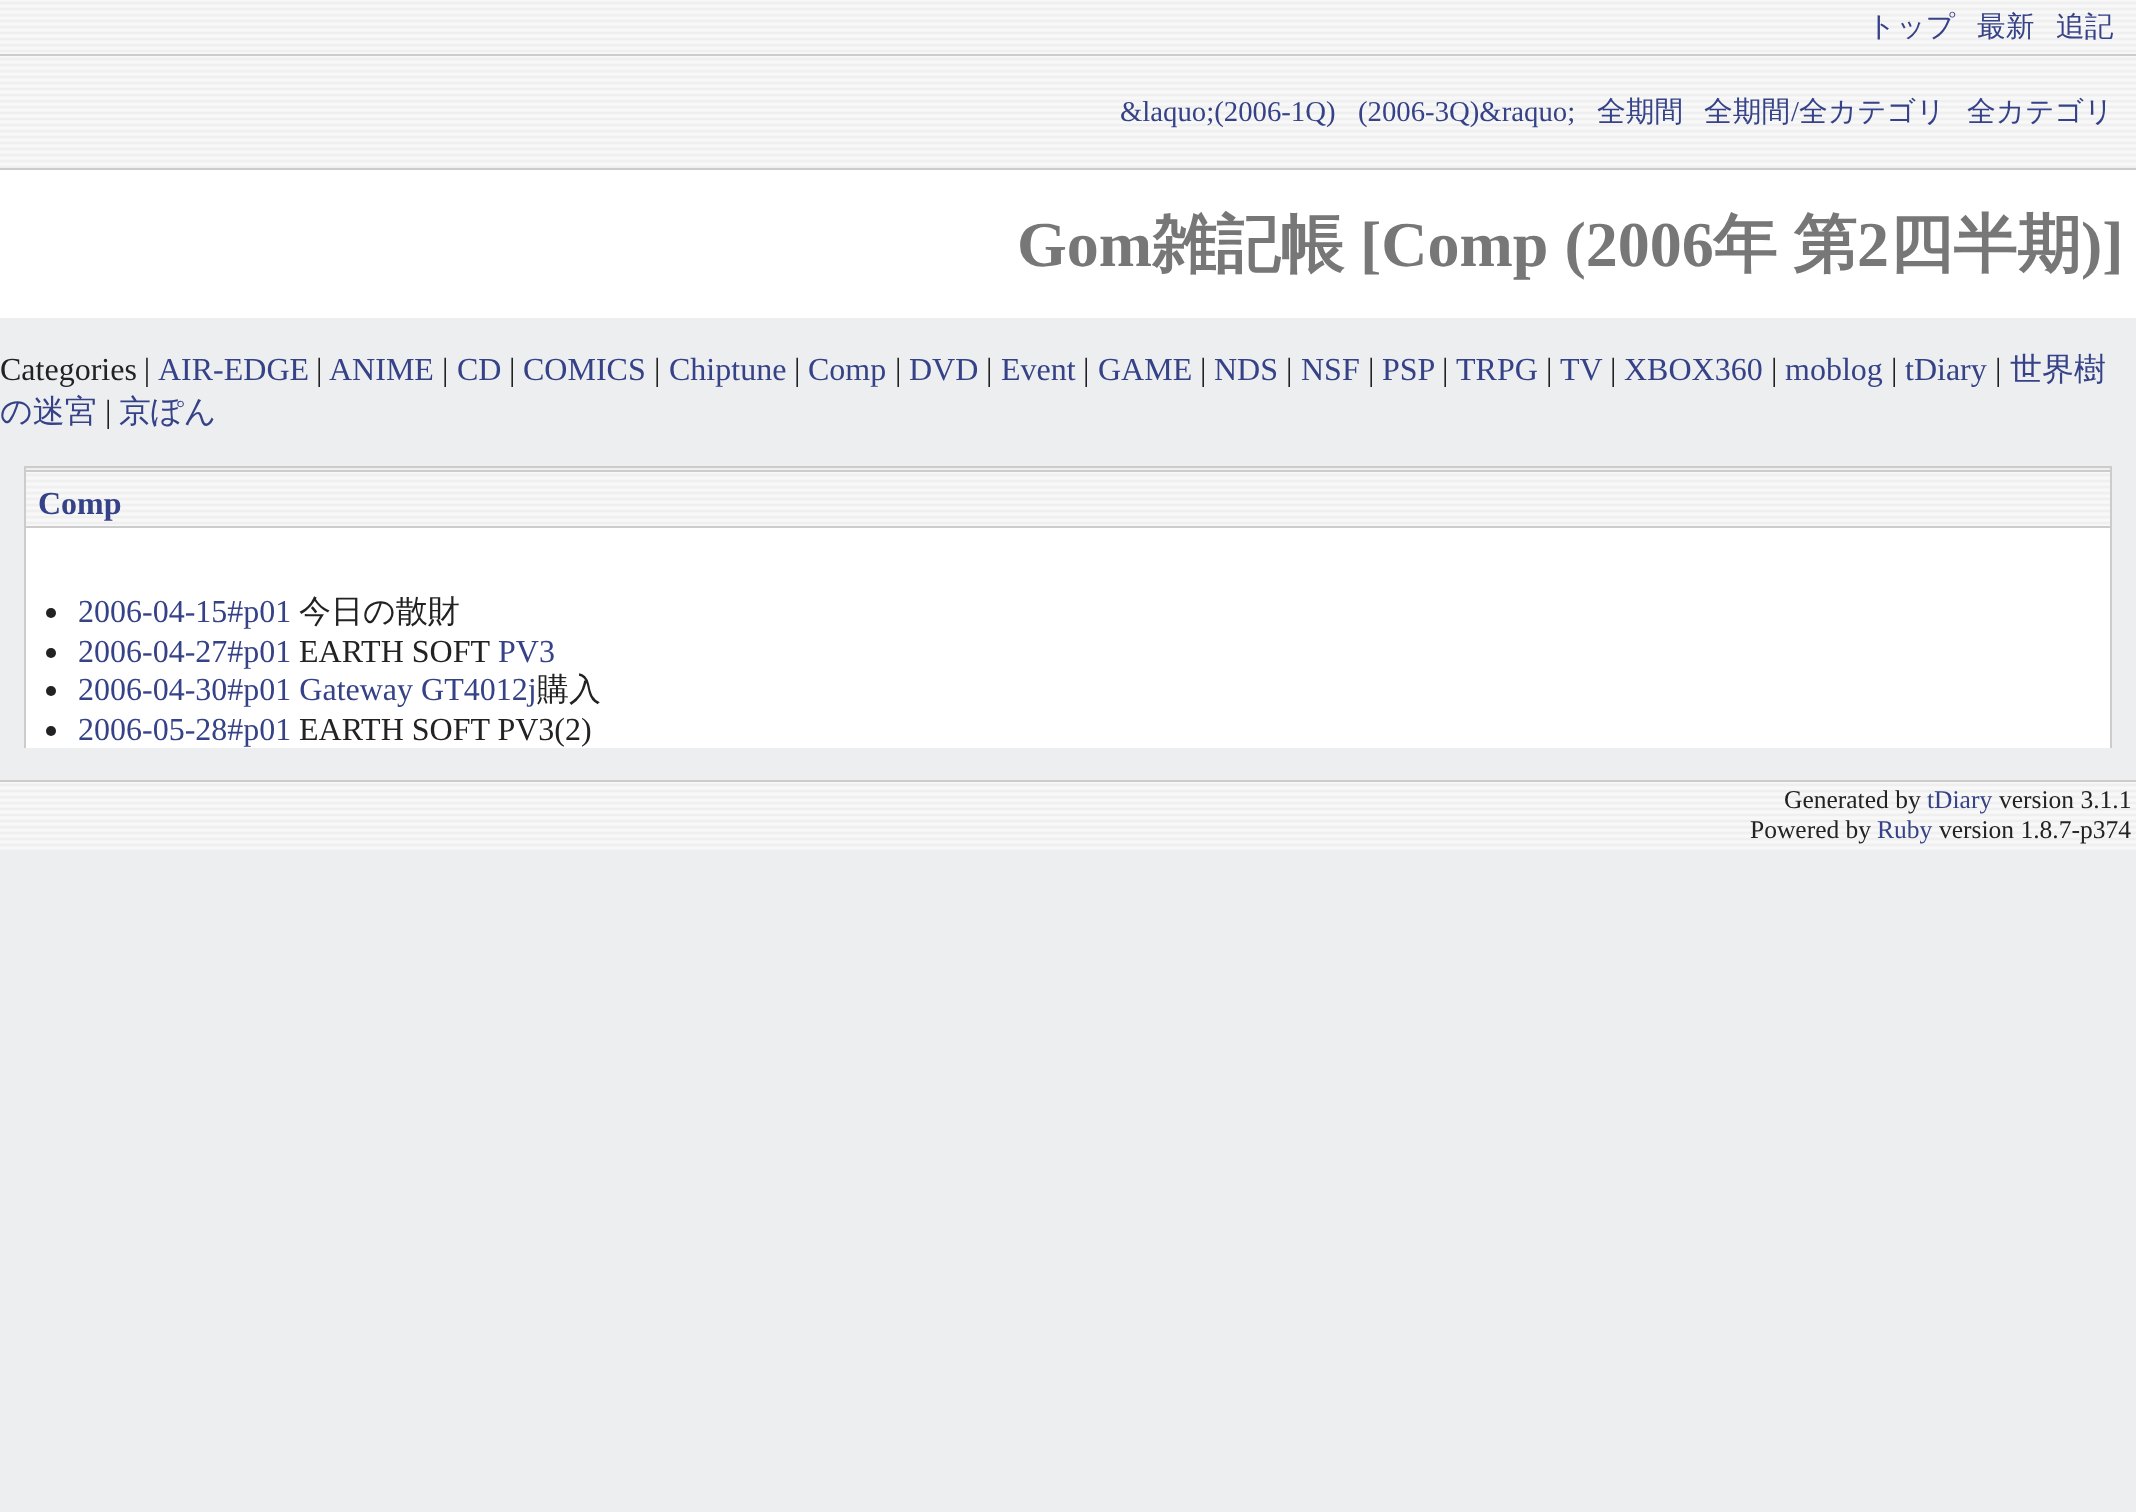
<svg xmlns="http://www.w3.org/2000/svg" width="2136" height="1512">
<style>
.a{font:500 28.75px WenQuanYi Zen Hei;fill:#364287}
.b{font:28.75px Liberation Serif;fill:#364287}
.c{font:bold 64px Liberation Serif;fill:#777}
.d{font:bold 64px WenQuanYi Zen Hei;fill:#777}
.e{font:32px Liberation Serif;fill:#222}
.f{font:32px Liberation Serif;fill:#364287}
.g{font:500 32px WenQuanYi Zen Hei;fill:#364287}
.h{font:bold 32px Liberation Serif;fill:#364287}
.i{font:500 32px WenQuanYi Zen Hei;fill:#222}
.j{font:25.5px Liberation Serif;fill:#222}
.k{font:25.5px Liberation Serif;fill:#364287}
</style>
<rect width="100%" height="100%" fill="#eceef0"/>
<image href="1.png" x="0" y="0" width="2136" height="54"/>
<path fill="#ccc" d="M0 54h2136v2H0z"/>
<image href="2.png" x="0" y="56" width="2136" height="112"/>
<path fill="#ccc" d="M0 168h2136v2H0z"/>
<path fill="#fff" d="M0 170h2136v148H0z"/>
<path fill="#fff" d="M26 528h2084v220H26z"/>
<image href="3.png" x="26" y="468" width="2084" height="58"/>
<path fill="#ccc" d="M24 466h2088v2H24z"/>
<path fill="#ccc" d="M24 470h2088v2H24z"/>
<path fill="#ccc" d="M2110 466h2v282H2110z"/>
<path fill="#ccc" d="M24 526h2088v2H24z"/>
<path fill="#ccc" d="M24 466h2v282H24z"/>
<circle fill="#222" cx="51" cy="613" r="5"/>
<circle fill="#222" cx="51" cy="653" r="5"/>
<circle fill="#222" cx="51" cy="691" r="5"/>
<circle fill="#222" cx="51" cy="731" r="5"/>
<image href="4.png" x="0" y="782" width="2136" height="68"/>
<path fill="#ccc" d="M0 780h2136v2H0z"/>
<text class="a" x="1867" y="36">トップ</text>
<text class="a" x="1977" y="36">最新</text>
<text class="a" x="2056" y="36">追記</text>
<text class="b" x="1120" y="121">&amp;laquo;(2006-1Q)</text>
<text class="b" x="1358" y="121">(2006-3Q)&amp;raquo;</text>
<text class="a" x="1597" y="121">全期間</text>
<text class="a" x="1704" y="121">全期間</text>
<text class="b" x="1791" y="121">/</text>
<text class="a" x="1799" y="121">全カテゴリ</text>
<text class="a" x="1967" y="121">全カテゴリ</text>
<text class="c" x="1017" y="266">Gom</text>
<text class="d" x="1152" y="266">雑記帳</text>
<text class="c" x="1360" y="266">[Comp (2006</text>
<text class="d" x="1713" y="266">年</text>
<text class="d" x="1793" y="266">第</text>
<text class="c" x="1857" y="266">2</text>
<text class="d" x="1889" y="266">四半期</text>
<text class="c" x="2081" y="266">)]</text>
<text class="e" x="0" y="380" word-spacing="-1">Categories |</text>
<text class="f" x="158" y="380">AIR-EDGE</text>
<text class="e" x="316" y="380">|</text>
<text class="f" x="329" y="380">ANIME</text>
<text class="e" x="442" y="380">|</text>
<text class="f" x="457" y="380">CD</text>
<text class="e" x="509" y="380">|</text>
<text class="f" x="523" y="380">COMICS</text>
<text class="e" x="654" y="380">|</text>
<text class="f" x="669" y="380">Chiptune</text>
<text class="e" x="794" y="380">|</text>
<text class="f" x="808" y="380">Comp</text>
<text class="e" x="895" y="380">|</text>
<text class="f" x="909" y="380">DVD</text>
<text class="e" x="986" y="380">|</text>
<text class="f" x="1001" y="380">Event</text>
<text class="e" x="1083" y="380">|</text>
<text class="f" x="1098" y="380">GAME</text>
<text class="e" x="1200" y="380">|</text>
<text class="f" x="1214" y="380">NDS</text>
<text class="e" x="1286" y="380">|</text>
<text class="f" x="1301" y="380">NSF</text>
<text class="e" x="1368" y="380">|</text>
<text class="f" x="1382" y="380">PSP</text>
<text class="e" x="1442" y="380">|</text>
<text class="f" x="1456" y="380">TRPG</text>
<text class="e" x="1546" y="380">|</text>
<text class="f" x="1560" y="380">TV</text>
<text class="e" x="1610" y="380">|</text>
<text class="f" x="1624" y="380">XBOX360</text>
<text class="e" x="1771" y="380">|</text>
<text class="f" x="1785" y="380">moblog</text>
<text class="e" x="1891" y="380">|</text>
<text class="f" x="1905" y="380">tDiary</text>
<text class="e" x="1995" y="380">|</text>
<text class="g" x="2010" y="380">世界樹</text>
<text class="g" x="0" y="422">の迷宮</text>
<text class="e" x="105" y="422">|</text>
<text class="g" x="119" y="422">京ぽん</text>
<text class="h" x="38" y="514">Comp</text>
<text class="f" x="78" y="622">2006-04-15#p01</text>
<text class="i" x="299" y="622">今日の散財</text>
<text class="f" x="78" y="662">2006-04-27#p01</text>
<text class="e" x="299" y="662">EARTH SOFT</text>
<text class="f" x="498" y="662">PV3</text>
<text class="f" x="78" y="700">2006-04-30#p01 Gateway GT4012j</text>
<text class="i" x="537" y="700">購入</text>
<text class="f" x="78" y="740">2006-05-28#p01</text>
<text class="e" x="299" y="740">EARTH SOFT PV3(2)</text>
<text class="j" x="1784" y="808">Generated by</text>
<text class="k" x="1927" y="808">tDiary</text>
<text class="j" x="1999" y="808">version 3.1.1</text>
<text class="j" x="1750" y="838">Powered by</text>
<text class="k" x="1877" y="838">Ruby</text>
<text class="j" x="1939" y="838">version 1.8.7-p374</text>
</svg>
